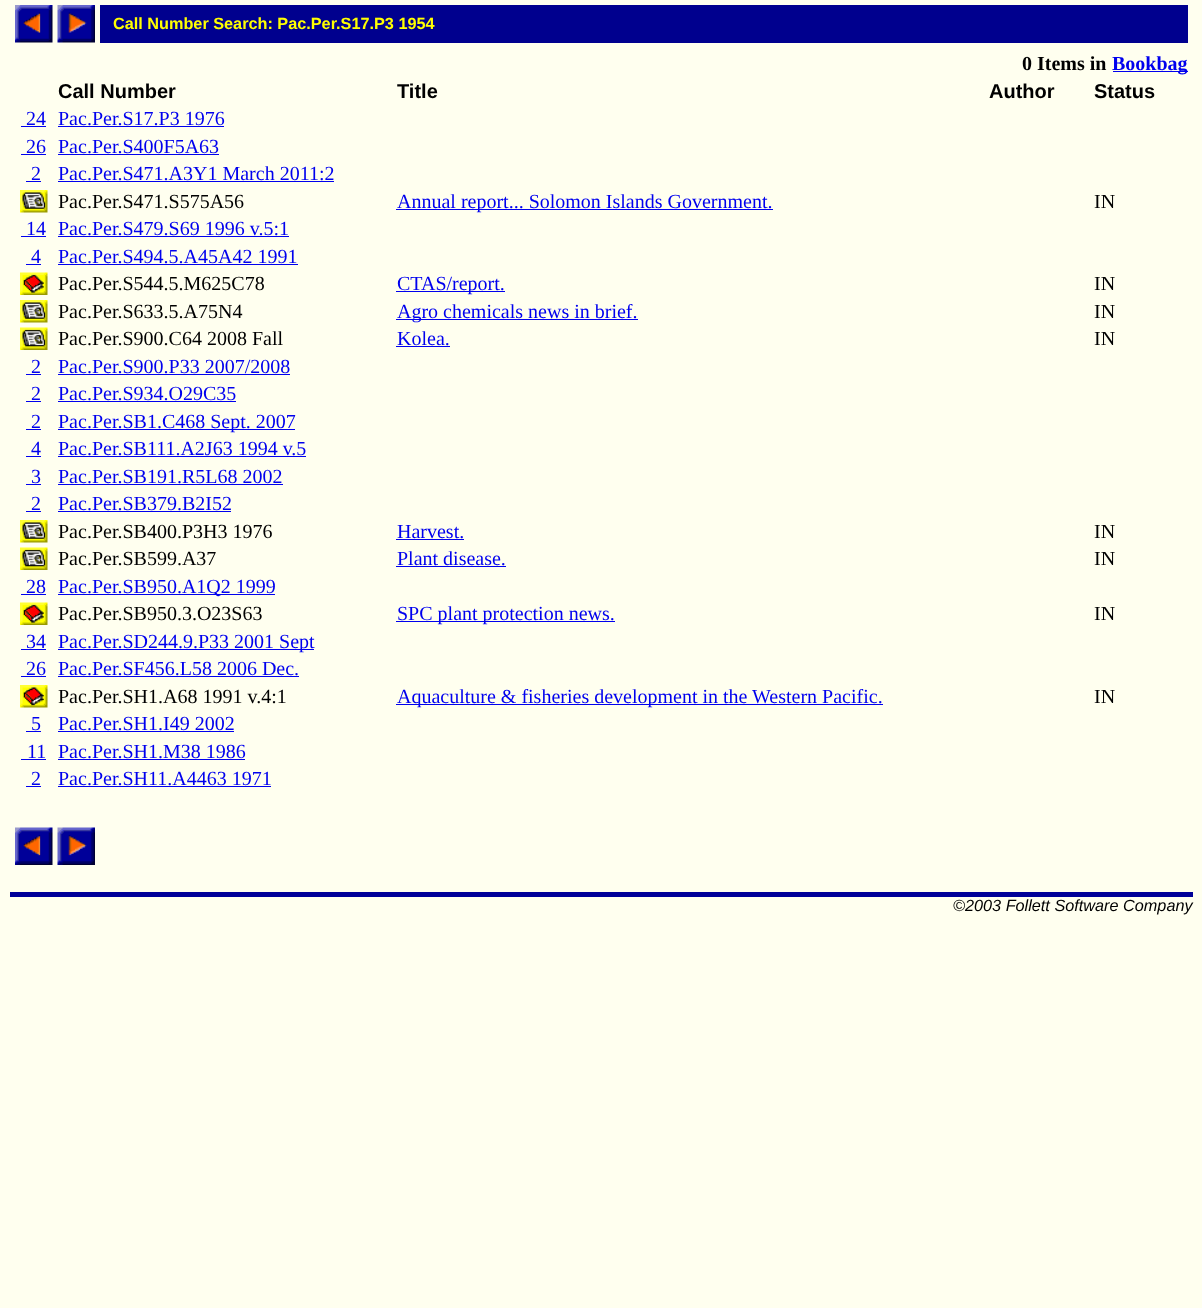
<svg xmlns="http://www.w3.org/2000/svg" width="1202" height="1308">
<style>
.a{font:bold 16.25px Liberation Sans;fill:#ff0}
.b{font:bold 20px Liberation Serif;fill:#000}
.c{font:bold 20px Liberation Serif;fill:#00e}
.d{font:bold 20px Liberation Sans;fill:#000}
.e{font:20px Liberation Serif;fill:#00e}
.f{font:20px Liberation Serif;fill:#000}
.g{font:italic 16.25px Liberation Sans;fill:#000}
</style>
<rect width="100%" height="100%" fill="#ffffef"/>
<image href="1.png" x="15" y="5" width="38" height="38"/>
<image href="2.png" x="57" y="5" width="38" height="38"/>
<path fill="#00008e" d="M100 5h1088v38H100z"/>
<path fill="#00e" d="M1113 71h75v1H1113z"/>
<path fill="#00e" d="M21 126h25v1H21z"/>
<path fill="#00e" d="M58 126h166v1H58z"/>
<path fill="#00e" d="M21 154h25v1H21z"/>
<path fill="#00e" d="M58 154h161v1H58z"/>
<path fill="#00e" d="M26 181h15v1H26z"/>
<path fill="#00e" d="M58 181h276v1H58z"/>
<image href="3.png" x="20" y="190" width="28" height="23"/>
<path fill="#00e" d="M396 209h377v1H396z"/>
<path fill="#00e" d="M21 236h25v1H21z"/>
<path fill="#00e" d="M58 236h231v1H58z"/>
<path fill="#00e" d="M26 264h15v1H26z"/>
<path fill="#00e" d="M58 264h240v1H58z"/>
<image href="4.png" x="20" y="272" width="28" height="23"/>
<path fill="#00e" d="M396 291h109v1H396z"/>
<image href="3.png" x="20" y="300" width="28" height="23"/>
<path fill="#00e" d="M396 319h242v1H396z"/>
<image href="5.png" x="20" y="327" width="28" height="23"/>
<path fill="#00e" d="M396 346h54v1H396z"/>
<path fill="#00e" d="M26 374h15v1H26z"/>
<path fill="#00e" d="M58 374h232v1H58z"/>
<path fill="#00e" d="M26 401h15v1H26z"/>
<path fill="#00e" d="M58 401h178v1H58z"/>
<path fill="#00e" d="M26 429h15v1H26z"/>
<path fill="#00e" d="M58 429h237v1H58z"/>
<path fill="#00e" d="M26 456h15v1H26z"/>
<path fill="#00e" d="M58 456h248v1H58z"/>
<path fill="#00e" d="M26 484h15v1H26z"/>
<path fill="#00e" d="M58 484h225v1H58z"/>
<path fill="#00e" d="M26 511h15v1H26z"/>
<path fill="#00e" d="M58 511h173v1H58z"/>
<image href="3.png" x="20" y="520" width="28" height="23"/>
<path fill="#00e" d="M396 539h68v1H396z"/>
<image href="5.png" x="20" y="547" width="28" height="23"/>
<path fill="#00e" d="M396 566h110v1H396z"/>
<path fill="#00e" d="M21 594h25v1H21z"/>
<path fill="#00e" d="M58 594h217v1H58z"/>
<image href="4.png" x="20" y="602" width="28" height="23"/>
<path fill="#00e" d="M396 621h219v1H396z"/>
<path fill="#00e" d="M21 649h25v1H21z"/>
<path fill="#00e" d="M58 649h256v1H58z"/>
<path fill="#00e" d="M21 676h25v1H21z"/>
<path fill="#00e" d="M58 676h241v1H58z"/>
<image href="6.png" x="20" y="685" width="28" height="23"/>
<path fill="#00e" d="M396 704h487v1H396z"/>
<path fill="#00e" d="M26 731h15v1H26z"/>
<path fill="#00e" d="M58 731h176v1H58z"/>
<path fill="#00e" d="M21 759h25v1H21z"/>
<path fill="#00e" d="M58 759h187v1H58z"/>
<path fill="#00e" d="M26 786h15v1H26z"/>
<path fill="#00e" d="M58 786h213v1H58z"/>
<image href="7.png" x="15" y="827" width="38" height="38"/>
<image href="8.png" x="57" y="827" width="38" height="38"/>
<path fill="#009" d="M10 892h1183v5H10z"/>
<text class="a" x="113" y="29">Call Number Search: Pac.Per.S17.P3 1954</text>
<text class="b" x="1022" y="70">0 Items in</text>
<text class="c" x="1112" y="70">Bookbag</text>
<text class="d" x="58" y="98">Call Number</text>
<text class="d" x="397" y="98">Title</text>
<text class="d" x="989" y="98">Author</text>
<text class="d" x="1094" y="98">Status</text>
<text class="e" x="26" y="125">24</text>
<text class="e" x="58" y="125">Pac.Per.S17.P3 1976</text>
<text class="e" x="26" y="153">26</text>
<text class="e" x="58" y="153">Pac.Per.S400F5A63</text>
<text class="e" x="31" y="180">2</text>
<text class="e" x="58" y="180">Pac.Per.S471.A3Y1 March 2011:2</text>
<text class="f" x="58" y="208">Pac.Per.S471.S575A56</text>
<text class="e" x="397" y="208">Annual report... Solomon Islands Government.</text>
<text class="f" x="1094" y="208">IN</text>
<text class="e" x="26" y="235">14</text>
<text class="e" x="58" y="235">Pac.Per.S479.S69 1996 v.5:1</text>
<text class="e" x="31" y="263">4</text>
<text class="e" x="58" y="263">Pac.Per.S494.5.A45A42 1991</text>
<text class="f" x="58" y="290">Pac.Per.S544.5.M625C78</text>
<text class="e" x="397" y="290">CTAS/report.</text>
<text class="f" x="1094" y="290">IN</text>
<text class="f" x="58" y="318">Pac.Per.S633.5.A75N4</text>
<text class="e" x="397" y="318">Agro chemicals news in brief.</text>
<text class="f" x="1094" y="318">IN</text>
<text class="f" x="58" y="345">Pac.Per.S900.C64 2008 Fall</text>
<text class="e" x="397" y="345">Kolea.</text>
<text class="f" x="1094" y="345">IN</text>
<text class="e" x="31" y="373">2</text>
<text class="e" x="58" y="373">Pac.Per.S900.P33 2007/2008</text>
<text class="e" x="31" y="400">2</text>
<text class="e" x="58" y="400">Pac.Per.S934.O29C35</text>
<text class="e" x="31" y="428">2</text>
<text class="e" x="58" y="428">Pac.Per.SB1.C468 Sept. 2007</text>
<text class="e" x="31" y="455">4</text>
<text class="e" x="58" y="455">Pac.Per.SB111.A2J63 1994 v.5</text>
<text class="e" x="31" y="483">3</text>
<text class="e" x="58" y="483">Pac.Per.SB191.R5L68 2002</text>
<text class="e" x="31" y="510">2</text>
<text class="e" x="58" y="510">Pac.Per.SB379.B2I52</text>
<text class="f" x="58" y="538">Pac.Per.SB400.P3H3 1976</text>
<text class="e" x="397" y="538">Harvest.</text>
<text class="f" x="1094" y="538">IN</text>
<text class="f" x="58" y="565">Pac.Per.SB599.A37</text>
<text class="e" x="397" y="565">Plant disease.</text>
<text class="f" x="1094" y="565">IN</text>
<text class="e" x="26" y="593">28</text>
<text class="e" x="58" y="593">Pac.Per.SB950.A1Q2 1999</text>
<text class="f" x="58" y="620">Pac.Per.SB950.3.O23S63</text>
<text class="e" x="397" y="620">SPC plant protection news.</text>
<text class="f" x="1094" y="620">IN</text>
<text class="e" x="26" y="648">34</text>
<text class="e" x="58" y="648">Pac.Per.SD244.9.P33 2001 Sept</text>
<text class="e" x="26" y="675">26</text>
<text class="e" x="58" y="675">Pac.Per.SF456.L58 2006 Dec.</text>
<text class="f" x="58" y="703">Pac.Per.SH1.A68 1991 v.4:1</text>
<text class="e" x="397" y="703">Aquaculture &amp; fisheries development in the Western Pacific.</text>
<text class="f" x="1094" y="703">IN</text>
<text class="e" x="31" y="730">5</text>
<text class="e" x="58" y="730">Pac.Per.SH1.I49 2002</text>
<text class="e" x="27" y="758">11</text>
<text class="e" x="58" y="758">Pac.Per.SH1.M38 1986</text>
<text class="e" x="31" y="785">2</text>
<text class="e" x="58" y="785">Pac.Per.SH11.A4463 1971</text>
<text class="g" x="953" y="911">©2003 Follett Software Company</text>
</svg>
